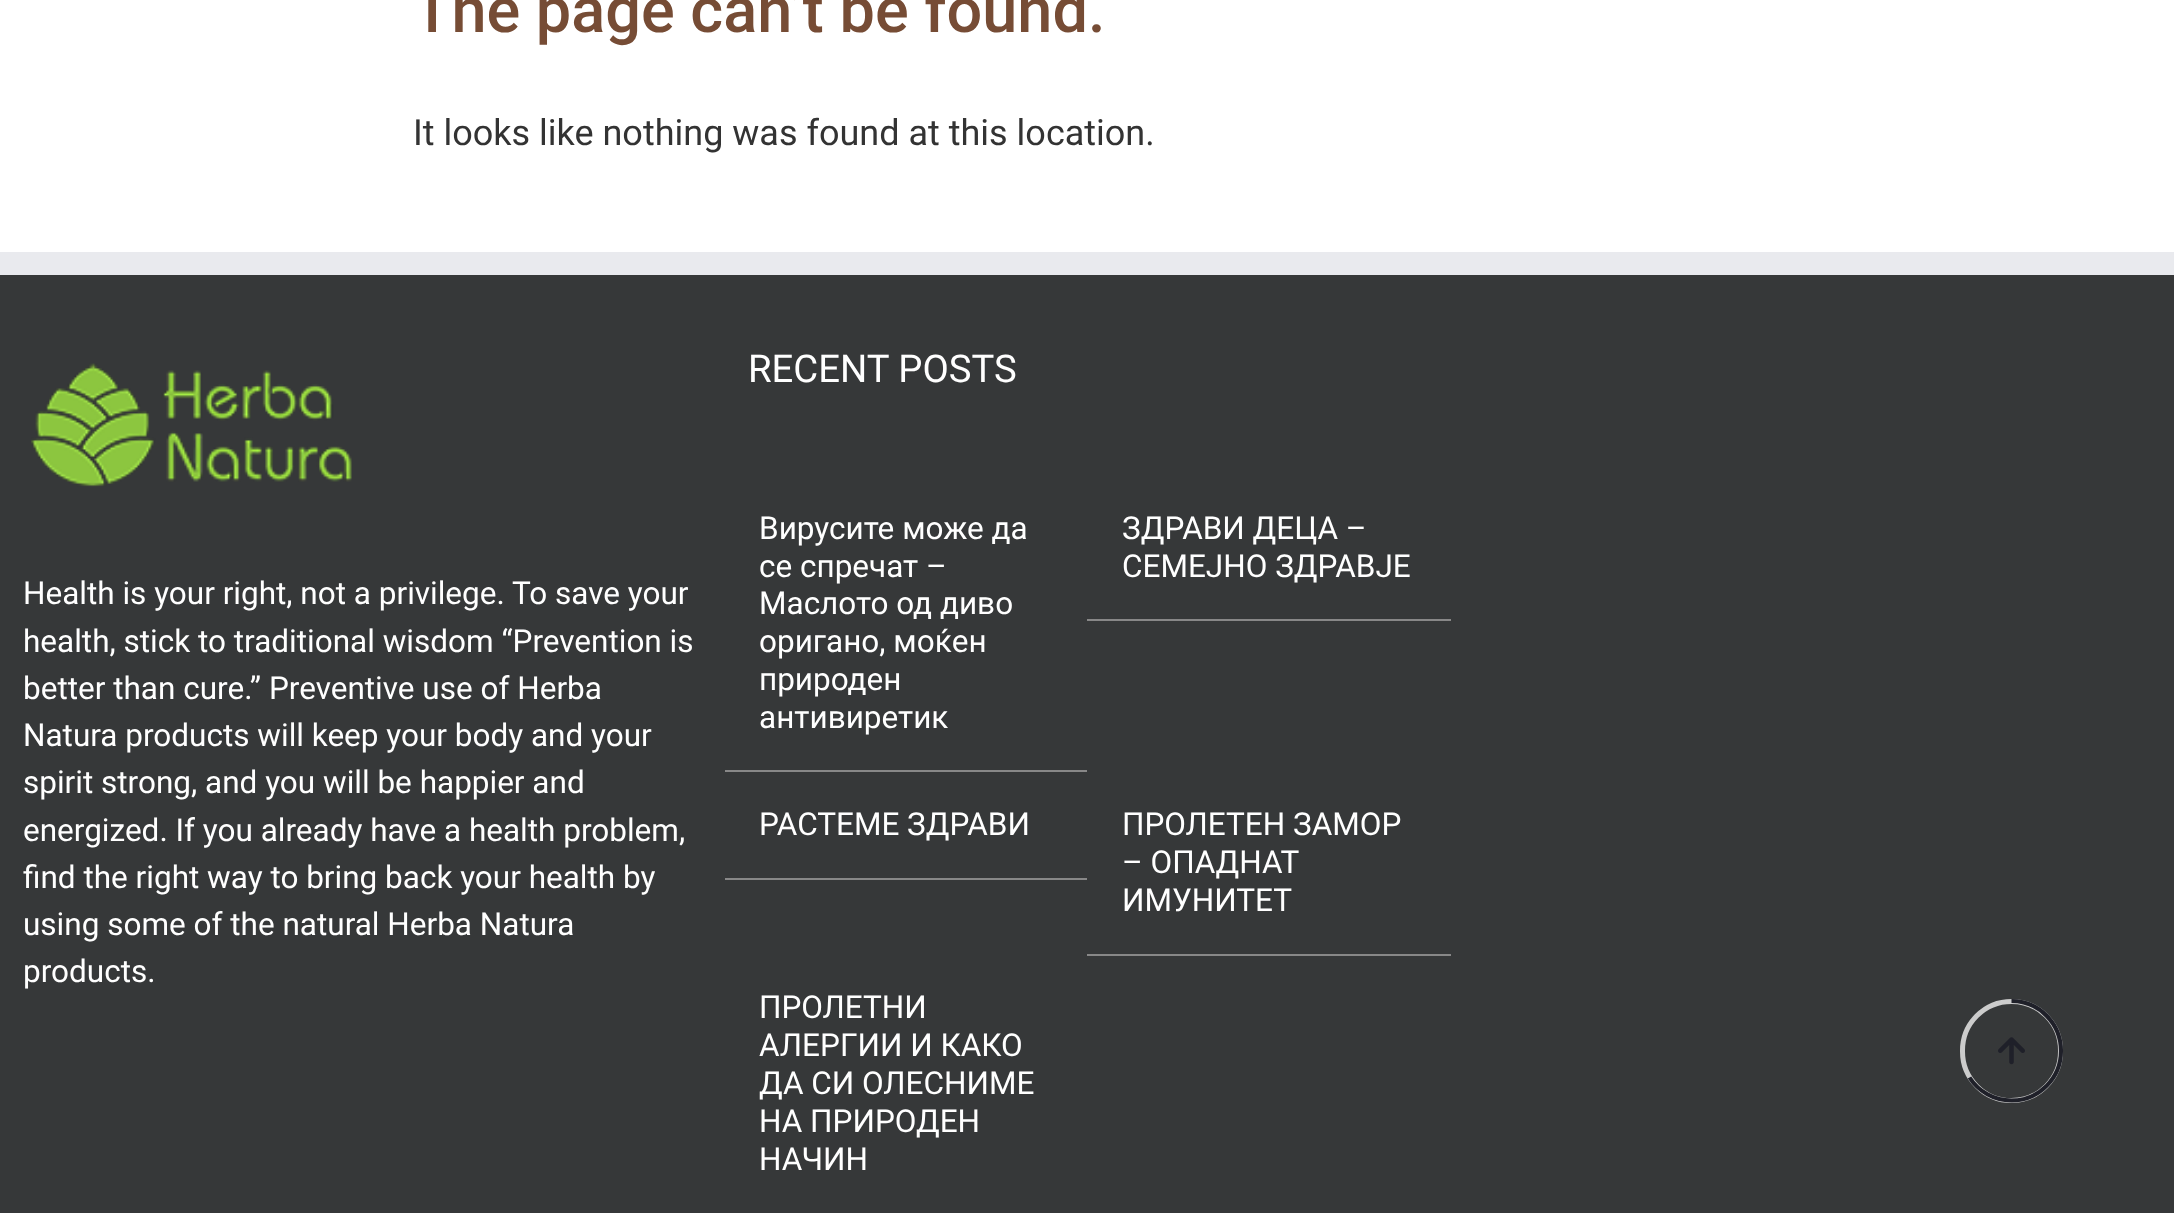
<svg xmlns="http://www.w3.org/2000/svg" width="2174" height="1213">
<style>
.a{font:500 63px Roboto;fill:#764c35}
.b{font:36px Roboto;fill:#333}
.c{font:31.5px Roboto;fill:#fff}
.d{font:38.25px Roboto;fill:#fff}
</style>
<rect width="100%" height="100%" fill="#fff"/>
<path fill="#363839" d="M0 275h2174v938H0z"/>
<path fill="#e9eaee" d="M0 252h2174v23H0z"/>
<image href="1.png" x="31" y="363" width="321" height="124"/>
<path fill="#888" d="M725 770h362v2H725z"/>
<path fill="#888" d="M1087 619h364v2H1087z"/>
<path fill="#888" d="M725 878h362v2H725z"/>
<path fill="#888" d="M1087 954h364v2H1087z"/>
<rect fill="none" stroke="#ccc" stroke-width="5" x="1962.5" y="1001.5" width="98" height="99" rx="49"/>
<path fill="none" stroke="#1f2029" stroke-width="4.1" d="M2011.5 1001c27.5 0 49.5 22.5 49.5 50c0 27-22 49.5-49.5 49.5c-17.5 0-33-9-42-23"/>
<image href="2.png" x="1998" y="1037" width="27" height="28"/>
<text class="a" x="413" y="32">The page can’t be found.</text>
<text class="b" x="413" y="145">It looks like nothing was found at this location.</text>
<text class="c" x="23" y="604">Health is your right, not a privilege. To save your</text>
<text class="c" x="23" y="652">health, stick to traditional wisdom “Prevention is</text>
<text class="c" x="23" y="699">better than cure.” Preventive use of Herba</text>
<text class="c" x="23" y="746">Natura products will keep your body and your</text>
<text class="c" x="23" y="793">spirit strong, and you will be happier and</text>
<text class="c" x="23" y="841">energized. If you already have a health problem,</text>
<text class="c" x="23" y="888">find the right way to bring back your health by</text>
<text class="c" x="23" y="935">using some of the natural Herba Natura</text>
<text class="c" x="23" y="982">products.</text>
<text class="d" x="748" y="382">RECENT POSTS</text>
<text class="c" x="759" y="539">Вирусите може да</text>
<text class="c" x="759" y="577">се спречат –</text>
<text class="c" x="759" y="614">Маслото од диво</text>
<text class="c" x="759" y="652">оригано, моќен</text>
<text class="c" x="759" y="690">природен</text>
<text class="c" x="759" y="728">антивиретик</text>
<text class="c" x="1122" y="539">ЗДРАВИ ДЕЦА –</text>
<text class="c" x="1122" y="577">СЕМЕЈНО ЗДРАВЈЕ</text>
<text class="c" x="759" y="835">РАСТЕМЕ ЗДРАВИ</text>
<text class="c" x="1122" y="835">ПРОЛЕТЕН ЗАМОР</text>
<text class="c" x="1122" y="873">– ОПАДНАТ</text>
<text class="c" x="1122" y="911">ИМУНИТЕТ</text>
<text class="c" x="759" y="1018">ПРОЛЕТНИ</text>
<text class="c" x="759" y="1056">АЛЕРГИИ И КАКО</text>
<text class="c" x="759" y="1094">ДА СИ ОЛЕСНИМЕ</text>
<text class="c" x="759" y="1132">НА ПРИРОДЕН</text>
<text class="c" x="759" y="1170">НАЧИН</text>
</svg>
